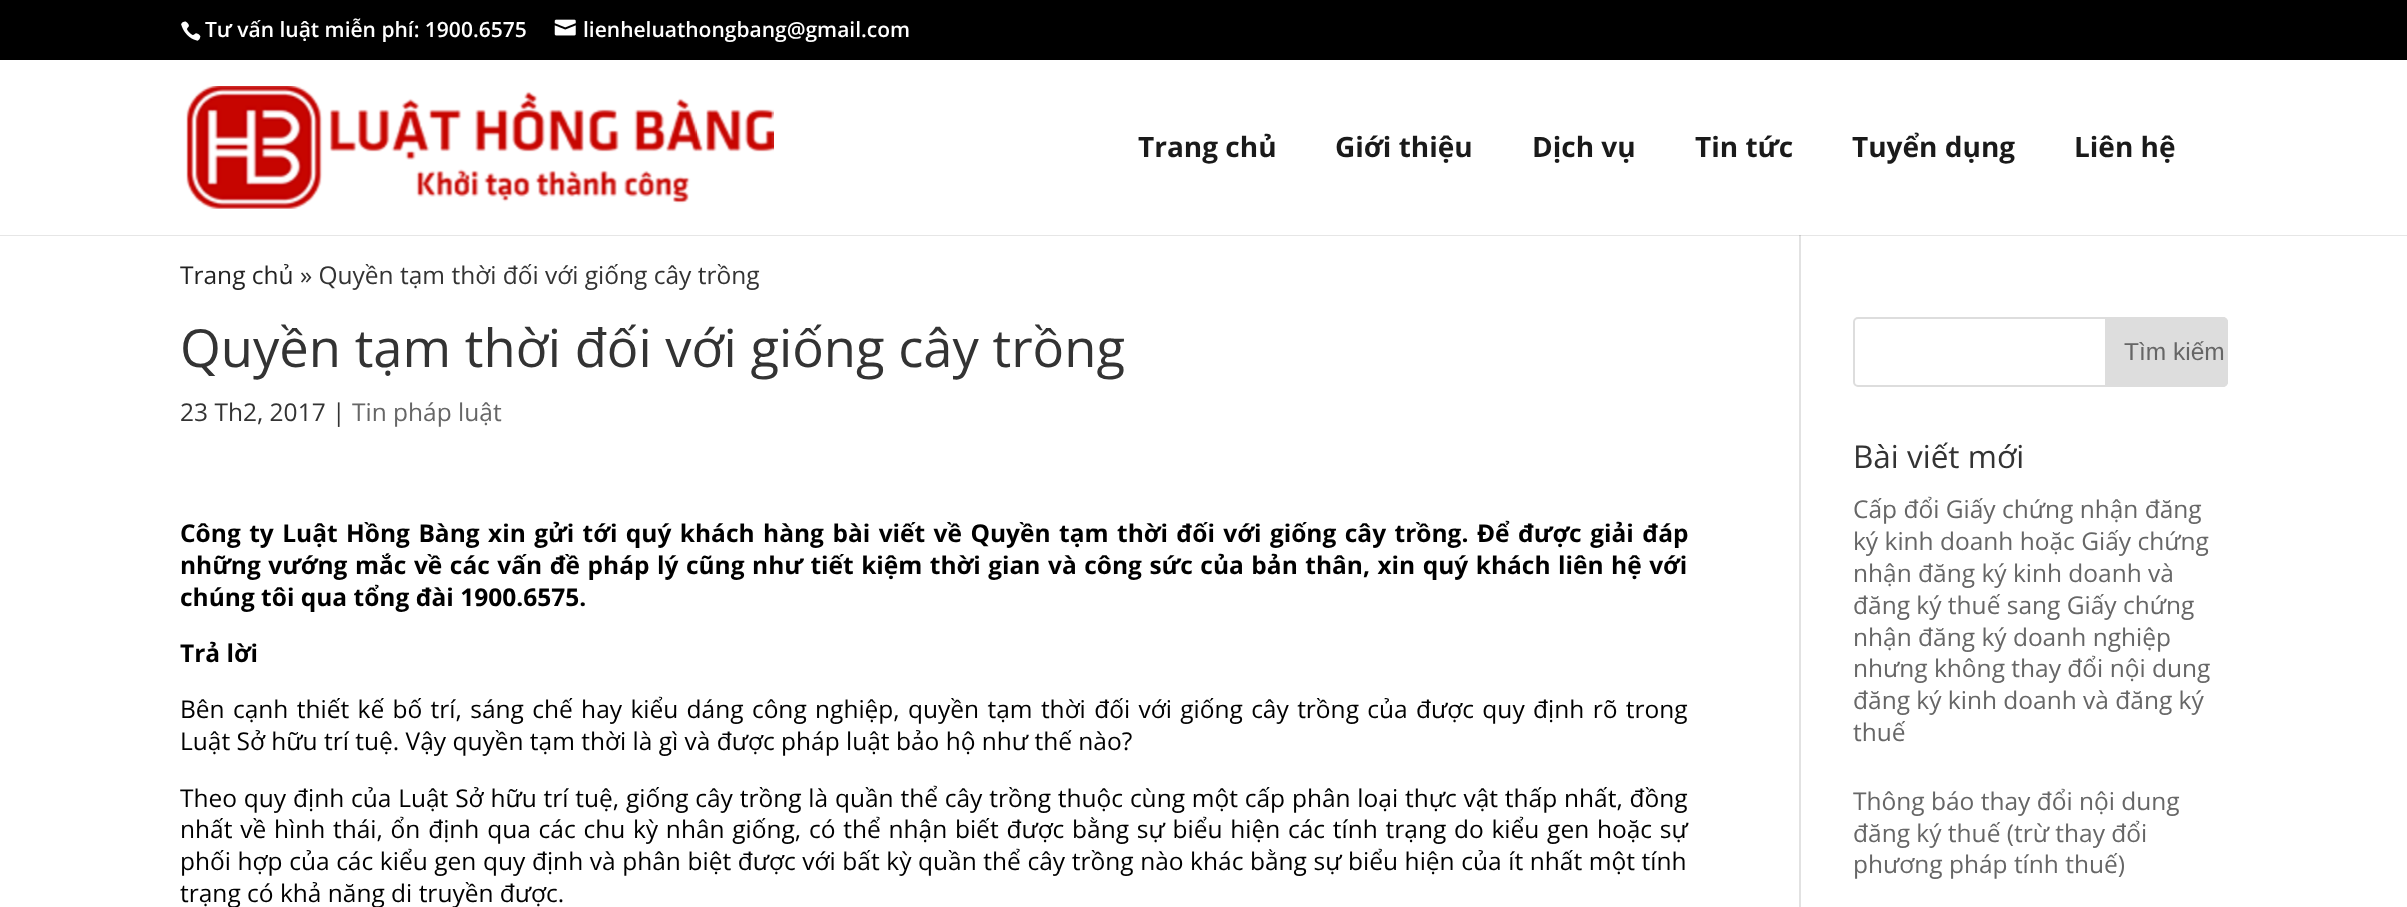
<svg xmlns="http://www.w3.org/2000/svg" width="2407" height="907">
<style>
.a{font:600 21px Open Sans;fill:#fff}
.b{font:bold 28px Open Sans;fill:#1a1a1a}
.c{font:24.5px Open Sans;fill:#222}
.d{font:24.5px Open Sans;fill:#333}
.e{font:52.5px Open Sans;fill:#333}
.f{font:24.5px Open Sans;fill:#666}
.g{font:bold 24.5px Open Sans;fill:#000}
.h{font:24.5px Open Sans;fill:#000}
.i{font:24.5px Liberation Sans;fill:#666}
.j{font:31.5px Open Sans;fill:#333}
</style>
<rect width="100%" height="100%" fill="#fff"/>
<path fill="#e6e6e6" d="M0 235h2407v1H0z"/>
<path fill="#000" d="M0 0h2407v60H0z"/>
<image href="1.png" x="181" y="21" width="20" height="20"/>
<image href="2.png" x="554" y="19" width="22" height="17"/>
<image href="3.png" x="186" y="86" width="588" height="123"/>
<path fill="#e2e2e2" d="M1799 235h2v672H1799z"/>
<path fill="#cbcbcb" d="M1799 235h2v1H1799z"/>
<rect fill="none" stroke="#ddd" stroke-width="2" x="1854" y="318" width="373" height="68" rx="4"/>
<path fill="#ddd" stroke="#ddd" stroke-width="2" d="M2106 318h117c2 0 4 2 4 4v60c0 2-2 4-4 4h-117z"/>
<text class="a" x="205" y="37">Tư vấn luật miễn phí: 1900.6575</text>
<text class="a" x="583" y="37">lienheluathongbang@gmail.com</text>
<text class="b" x="1138" y="157">Trang chủ</text>
<text class="b" x="1335" y="157">Giới thiệu</text>
<text class="b" x="1532" y="157">Dịch vụ</text>
<text class="b" x="1695" y="157">Tin tức</text>
<text class="b" x="1852" y="157">Tuyển dụng</text>
<text class="b" x="2074" y="157">Liên hệ</text>
<text class="c" x="180" y="284">Trang chủ</text>
<text class="d" x="300" y="284">» Quyền tạm thời đối với giống cây trồng</text>
<text class="e" x="180" y="367">Quyền tạm thời đối với giống cây trồng</text>
<text class="d" x="180" y="421">23 Th2, 2017 |</text>
<text class="f" x="352" y="421">Tin pháp luật</text>
<text class="g" x="180" y="542" word-spacing="2.1">Công ty Luật Hồng Bàng</text>
<text class="g" x="488" y="542" word-spacing="2.1">xin gửi tới quý khách hàng bài viết về Quyền tạm thời đối với giống cây trồng. Để được giải đáp</text>
<text class="g" x="180" y="574" word-spacing="1.15">những vướng mắc về các vấn đề pháp lý cũng như tiết kiệm thời gian và công sức của bản thân, xin quý khách liên hệ với</text>
<text class="g" x="180" y="606">chúng tôi qua tổng đài 1900.6575.</text>
<text class="g" x="180" y="662">Trả lời</text>
<text class="h" x="180" y="718" word-spacing="2">Bên cạnh thiết kế bố trí, sáng chế hay kiểu dáng công nghiệp, quyền tạm thời đối với giống cây trồng của được quy định rõ trong</text>
<text class="h" x="180" y="750">Luật Sở hữu trí tuệ. Vậy quyền tạm thời là gì và được pháp luật bảo hộ như thế nào?</text>
<text class="h" x="180" y="807" word-spacing="0.45">Theo quy định của Luật Sở hữu trí tuệ, giống cây trồng là quần thể cây trồng thuộc cùng một cấp phân loại thực vật thấp nhất, đồng</text>
<text class="h" x="180" y="838" word-spacing="1.4">nhất về hình thái, ổn định qua các chu kỳ nhân giống, có thể nhận biết được bằng sự biểu hiện các tính trạng do kiểu gen hoặc sự</text>
<text class="h" x="180" y="870" word-spacing="0.25">phối hợp của các kiểu gen quy định và phân biệt được với bất kỳ quần thể cây trồng nào khác bằng sự biểu hiện của ít nhất một tính</text>
<text class="h" x="180" y="902">trạng có khả năng di truyền được.</text>
<text class="i" x="2124" y="360">Tìm kiếm</text>
<text class="j" x="1853" y="468">Bài viết mới</text>
<text class="f" x="1853" y="518">Cấp đổi Giấy chứng nhận đăng</text>
<text class="f" x="1853" y="550">ký kinh doanh hoặc Giấy chứng</text>
<text class="f" x="1853" y="582">nhận đăng ký kinh doanh và</text>
<text class="f" x="1853" y="614">đăng ký thuế sang Giấy chứng</text>
<text class="f" x="1853" y="646">nhận đăng ký doanh nghiệp</text>
<text class="f" x="1853" y="677">nhưng không thay đổi nội dung</text>
<text class="f" x="1853" y="709">đăng ký kinh doanh và đăng ký</text>
<text class="f" x="1853" y="741">thuế</text>
<text class="f" x="1853" y="810">Thông báo thay đổi nội dung</text>
<text class="f" x="1853" y="842">đăng ký thuế (trừ thay đổi</text>
<text class="f" x="1853" y="873">phương pháp tính thuế)</text>
</svg>
